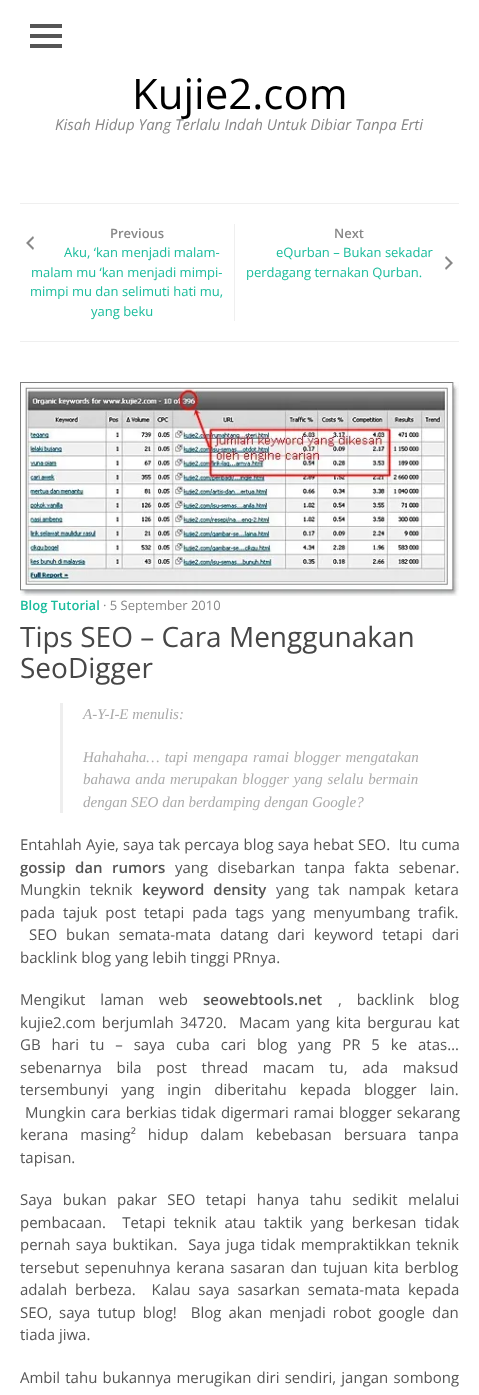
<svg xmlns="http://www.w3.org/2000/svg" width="479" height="1395">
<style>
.a{font:42px Open Sans;fill:#000}
.b{font:italic 15px Open Sans;fill:#878787}
.c{font:600 13px Open Sans;fill:#878787}
.d{font:13px Open Sans;fill:#1abc9c}
.e{font:600 13px Open Sans;fill:#1abc9c}
.f{font:13px Open Sans;fill:#878787}
.g{font:28px Open Sans;fill:#474747}
.h{font:italic 15px Liberation Serif;fill:#aaa}
.i{font:15px Open Sans;fill:#555}
.j{font:600 15px Open Sans;fill:#555}
</style>
<rect width="100%" height="100%" fill="#fff"/>
<image href="1.png" x="30" y="24" width="32" height="24"/>
<path fill="#efefef" d="M20 203h439v1H20z"/>
<path fill="#efefef" d="M20 341h439v1H20z"/>
<path fill="#efefef" d="M234 224h1v97H234z"/>
<image href="2.png" x="26" y="236" width="8" height="14"/>
<image href="3.png" x="445" y="256" width="8" height="14"/>
<image href="4.png" x="20" y="382" width="439" height="214"/>
<path fill="#eee" d="M60 703h3v110H60z"/>
<text class="a" x="132" y="109">Kujie2.com</text>
<text class="b" x="55" y="130">Kisah Hidup Yang Terlalu Indah Untuk Dibiar Tanpa Erti</text>
<text class="c" x="110" y="238">Previous</text>
<text class="d" x="64" y="257">Aku, ‘kan menjadi malam-</text>
<text class="d" x="31" y="277">malam mu ‘kan menjadi mimpi-</text>
<text class="d" x="30" y="296">mimpi mu dan selimuti hati mu,</text>
<text class="d" x="91" y="316">yang beku</text>
<text class="c" x="334" y="238">Next</text>
<text class="d" x="276" y="257">eQurban – Bukan sekadar</text>
<text class="d" x="246" y="277">perdagang ternakan Qurban.</text>
<text class="e" x="20" y="610">Blog Tutorial</text>
<text class="f" x="103" y="610">· 5 September 2010</text>
<text class="g" x="20" y="647">Tips SEO – Cara Menggunakan</text>
<text class="g" x="20" y="678">SeoDigger</text>
<text class="h" x="83" y="719">A-Y-I-E menulis:</text>
<text class="h" x="83" y="762" word-spacing="1.25">Hahahaha… tapi mengapa ramai blogger mengatakan</text>
<text class="h" x="83" y="784" word-spacing="1">bahawa anda merupakan blogger yang selalu bermain</text>
<text class="h" x="83" y="807">dengan SEO dan berdamping dengan Google?</text>
<text class="i" xml:space="preserve" x="20" y="850" word-spacing="0.25">Entahlah Ayie, saya tak percaya blog saya hebat SEO.  Itu cuma</text>
<text class="j" x="20" y="873" word-spacing="5.5">gossip dan rumors</text>
<text class="i" x="175" y="873" word-spacing="5.5">yang disebarkan tanpa fakta sebenar.</text>
<text class="i" x="20" y="895" word-spacing="5">Mungkin teknik</text>
<text class="j" x="142" y="895" word-spacing="5">keyword density</text>
<text class="i" x="276" y="895" word-spacing="5">yang tak nampak ketara</text>
<text class="i" x="20" y="918" word-spacing="4">pada tajuk post tetapi pada tags yang menyumbang trafik.</text>
<text class="i" x="29" y="940" word-spacing="5">SEO bukan semata-mata datang dari keyword tetapi dari</text>
<text class="i" x="20" y="963">backlink blog yang lebih tinggi PRnya.</text>
<text class="i" x="20" y="1005" word-spacing="11">Mengikut laman web</text>
<text class="j" x="203" y="1005">seowebtools.net</text>
<text class="i" x="338" y="1005" word-spacing="11">, backlink blog</text>
<text class="i" xml:space="preserve" x="20" y="1028" word-spacing="2.25">kujie2.com berjumlah 34720.  Macam yang kita bergurau kat</text>
<text class="i" x="20" y="1050" word-spacing="7">GB hari tu – saya cuba cari blog yang PR 5 ke atas…</text>
<text class="i" x="20" y="1073" word-spacing="10.75">sebenarnya bila post thread macam tu, ada maksud</text>
<text class="i" x="20" y="1095" word-spacing="9">tersembunyi yang ingin diberitahu kepada blogger lain.</text>
<text class="i" x="25" y="1118" word-spacing="1">Mungkin cara berkias tidak digermari ramai blogger sekarang</text>
<text class="i" x="20" y="1140" word-spacing="8">kerana masing² hidup dalam kebebasan bersuara tanpa</text>
<text class="i" x="20" y="1163">tapisan.</text>
<text class="i" x="20" y="1205" word-spacing="6.5">Saya bukan pakar SEO tetapi hanya tahu sedikit melalui</text>
<text class="i" xml:space="preserve" x="20" y="1228" word-spacing="4.25">pembacaan.  Tetapi teknik atau taktik yang berkesan tidak</text>
<text class="i" xml:space="preserve" x="20" y="1250" word-spacing="1.5">pernah saya buktikan.  Saya juga tidak mempraktikkan teknik</text>
<text class="i" x="20" y="1273" word-spacing="1.75">tersebut sepenuhnya kerana sasaran dan tujuan kita berblog</text>
<text class="i" xml:space="preserve" x="20" y="1295" word-spacing="4">adalah berbeza.  Kalau saya sasarkan semata-mata kepada</text>
<text class="i" xml:space="preserve" x="20" y="1318" word-spacing="3.1">SEO, saya tutup blog!  Blog akan menjadi robot google dan</text>
<text class="i" x="20" y="1340">tiada jiwa.</text>
<text class="i" x="20" y="1383" word-spacing="1.25">Ambil tahu bukannya merugikan diri sendiri, jangan sombong</text>
</svg>
